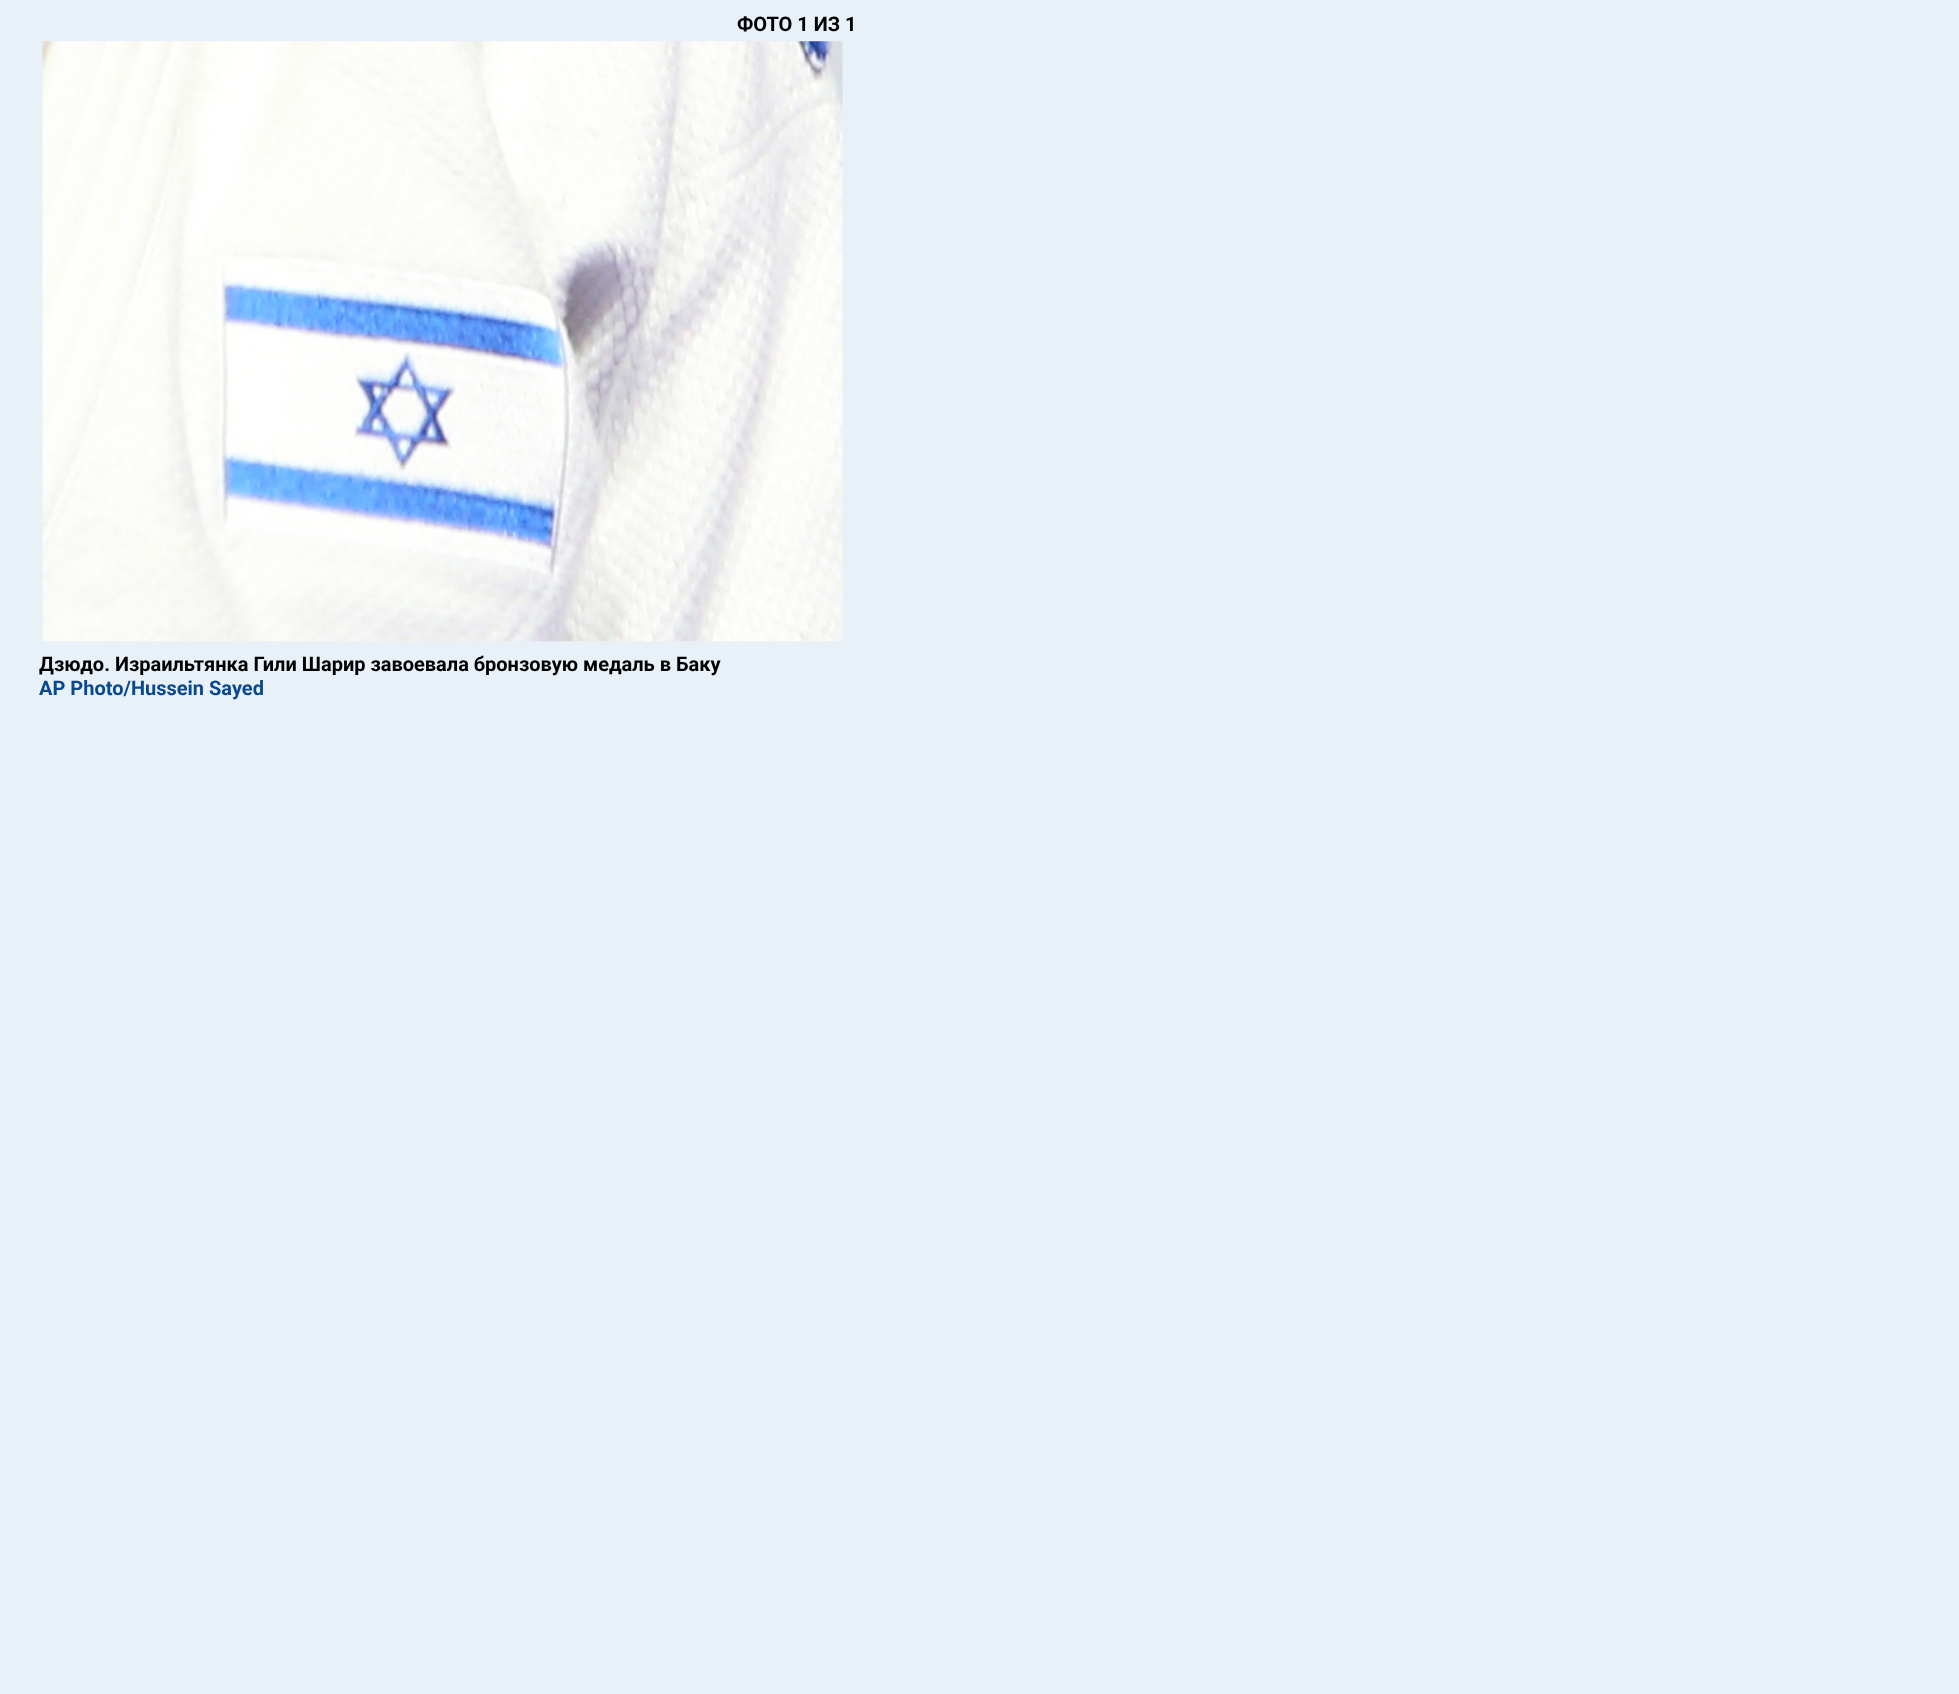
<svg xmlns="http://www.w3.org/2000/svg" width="1959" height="1694">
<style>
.a{font:bold 20px Roboto;fill:#000}
.b{font:bold 20px Roboto;fill:#09488f}
</style>
<rect width="100%" height="100%" fill="#e8f1f8"/>
<image href="1.png" x="42" y="41" width="801" height="601"/>
<text class="a" x="737" y="31">ФОТО 1 ИЗ 1</text>
<text class="a" x="39" y="671">Дзюдо. Израильтянка Гили Шарир завоевала бронзовую медаль в Баку</text>
<text class="b" x="39" y="695">AP Photo/Hussein Sayed</text>
</svg>
